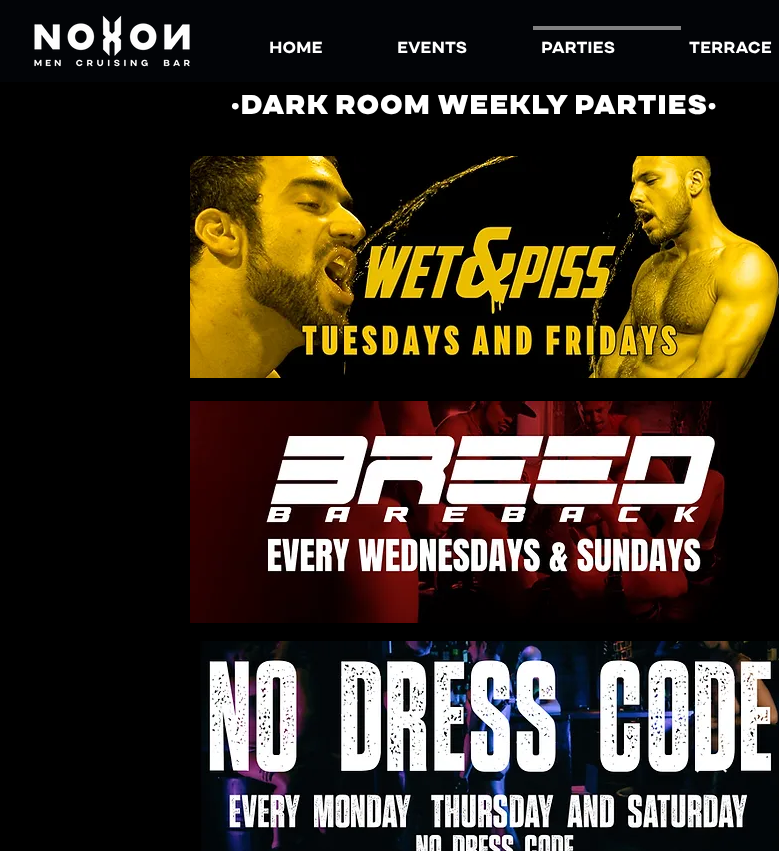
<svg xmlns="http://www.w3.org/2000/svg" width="779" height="851">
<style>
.a{font:bold 16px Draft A;fill:#fff}
.b{font:900 27px Draft A;letter-spacing:0.8px;fill:#fff}
</style>
<rect width="100%" height="100%" fill="#000"/>
<path fill="#020407" d="M0 0h779v82H0z"/>
<image href="1.png" x="34" y="15" width="156" height="52"/>
<path fill="#818181" d="M533 26h148v4H533z"/>
<image href="2.png" x="190" y="156" width="589" height="222"/>
<image href="3.png" x="190" y="401" width="537" height="222"/>
<image href="4.png" x="200" y="641" width="579" height="210"/>
<path fill="#fff" d="M696 771l1.5 1.5l14-14l14 14l1.5-1.5l-15.5-15.5z"/>
<text class="a" x="269" y="53">HOME</text>
<text class="a" x="397" y="53">EVENTS</text>
<text class="a" x="541" y="53">PARTIES</text>
<text class="a" x="689" y="53">TERRACE</text>
<text class="b" x="231" y="114">·DARK ROOM WEEKLY PARTIES·</text>
</svg>
